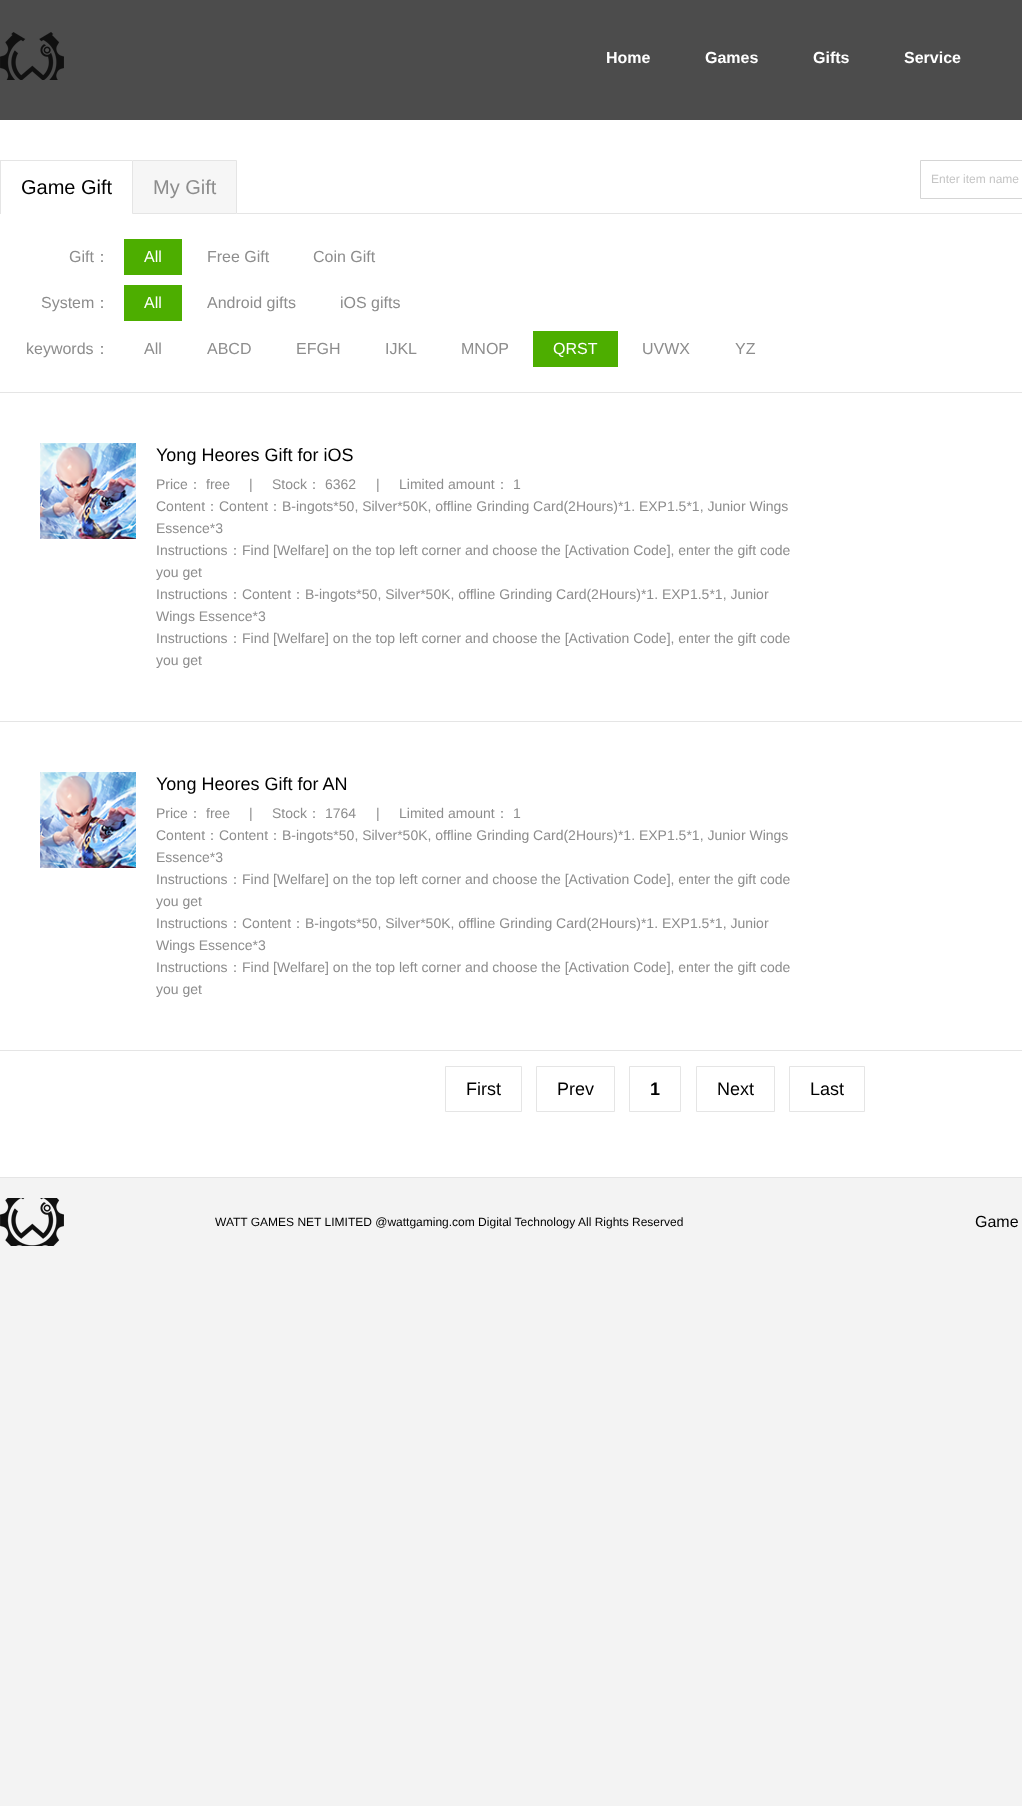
<svg xmlns="http://www.w3.org/2000/svg" width="1022" height="1806">
<style>
.a{font:bold 16px Liberation Sans;fill:#fff}
.b{font:20px Liberation Sans;fill:#000}
.c{font:20px Liberation Sans;fill:#8d8d8d}
.d{font:12px Liberation Sans;fill:#c5c5c5}
.e{font:16px Liberation Sans;fill:#8d8d8d}
.f{font:500 16px WenQuanYi Zen Hei;fill:#8d8d8d}
.g{font:16px Liberation Sans;fill:#fff}
.h{font:18px Liberation Sans;fill:#000}
.i{font:14px Liberation Sans;fill:#8d8d8d}
.j{font:500 14px WenQuanYi Zen Hei;fill:#8d8d8d}
.k{font:bold 18px Liberation Sans;fill:#000}
.l{font:12px Liberation Sans;fill:#000}
.m{font:16px Liberation Sans;fill:#000}
</style>
<rect width="100%" height="100%" fill="#f3f3f3"/>
<path fill="#fff" d="M0 120h1022v1057H0z"/>
<path fill="#4c4c4c" d="M0 0h1022v120H0z"/>
<image href="1.png" x="0" y="32" width="64" height="48"/>
<path fill="#e5e5e5" d="M0 160h132v1H0z"/>
<path fill="#e5e5e5" d="M0 160h1v54H0z"/>
<path fill="#f6f6f6" stroke="#e5e5e5" d="M132.5 160.5h104v53H132.5z"/>
<path fill="#e5e5e5" d="M237 213h785v1H237z"/>
<path fill="none" stroke="#d5d5d5" d="M920.5 160.5h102v38H920.5z"/>
<path fill="#4dae00" d="M124 239h58v36H124z"/>
<path fill="#4dae00" d="M124 285h58v36H124z"/>
<path fill="#4dae00" d="M533 331h85v36H533z"/>
<path fill="#e5e5e5" d="M0 392h1022v1H0z"/>
<path fill="#e5e5e5" d="M0 721h1022v1H0z"/>
<image href="2.png" x="40" y="443" width="96" height="96"/>
<path fill="#e5e5e5" d="M0 1050h1022v1H0z"/>
<image href="2.png" x="40" y="772" width="96" height="96"/>
<path fill="none" stroke="#e5e5e5" d="M445.5 1066.5h76v45H445.5z"/>
<path fill="none" stroke="#e5e5e5" d="M536.5 1066.5h78v45H536.5z"/>
<path fill="none" stroke="#e5e5e5" d="M629.5 1066.5h51v45H629.5z"/>
<path fill="none" stroke="#e5e5e5" d="M696.5 1066.5h78v45H696.5z"/>
<path fill="none" stroke="#e5e5e5" d="M789.5 1066.5h75v45H789.5z"/>
<path fill="#e5e5e5" d="M0 1177h1022v1H0z"/>
<image href="3.png" x="0" y="1198" width="64" height="48"/>
<text class="a" x="606" y="63">Home</text>
<text class="a" x="705" y="63">Games</text>
<text class="a" x="813" y="63">Gifts</text>
<text class="a" x="904" y="63">Service</text>
<text class="b" x="21" y="194">Game Gift</text>
<text class="c" x="153" y="194">My Gift</text>
<text class="d" x="931" y="183">Enter item name</text>
<text class="e" x="69" y="262">Gift</text>
<text class="f" x="94" y="262">：</text>
<text class="g" x="144" y="262">All</text>
<text class="e" x="207" y="262">Free Gift</text>
<text class="e" x="313" y="262">Coin Gift</text>
<text class="e" x="41" y="308">System</text>
<text class="f" x="94" y="308">：</text>
<text class="g" x="144" y="308">All</text>
<text class="e" x="207" y="308">Android gifts</text>
<text class="e" x="340" y="308">iOS gifts</text>
<text class="e" x="26" y="354">keywords</text>
<text class="f" x="94" y="354">：</text>
<text class="e" x="144" y="354">All</text>
<text class="e" x="207" y="354">ABCD</text>
<text class="e" x="296" y="354">EFGH</text>
<text class="e" x="385" y="354">IJKL</text>
<text class="e" x="461" y="354">MNOP</text>
<text class="g" x="553" y="354">QRST</text>
<text class="e" x="642" y="354">UVWX</text>
<text class="e" x="735" y="354">YZ</text>
<text class="h" x="156" y="461">Yong Heores Gift for iOS</text>
<text class="i" x="156" y="489">Price</text>
<text class="j" x="188" y="489">：</text>
<text class="i" x="206" y="489">free</text>
<text class="i" x="249" y="489">|</text>
<text class="i" x="272" y="489">Stock</text>
<text class="j" x="307" y="489">：</text>
<text class="i" x="325" y="489">6362</text>
<text class="i" x="376" y="489">|</text>
<text class="i" x="399" y="489">Limited amount</text>
<text class="j" x="495" y="489">：</text>
<text class="i" x="513" y="489">1</text>
<text class="i" x="156" y="511">Content</text>
<text class="j" x="205" y="511">：</text>
<text class="i" x="219" y="511">Content</text>
<text class="j" x="268" y="511">：</text>
<text class="i" x="282" y="511">B-ingots*50, Silver*50K, offline Grinding Card(2Hours)*1. EXP1.5*1, Junior Wings</text>
<text class="i" x="156" y="533">Essence*3</text>
<text class="i" x="156" y="555">Instructions</text>
<text class="j" x="228" y="555">：</text>
<text class="i" x="242" y="555">Find [Welfare] on the top left corner and choose the [Activation Code], enter the gift code</text>
<text class="i" x="156" y="577">you get</text>
<text class="i" x="156" y="599">Instructions</text>
<text class="j" x="228" y="599">：</text>
<text class="i" x="242" y="599">Content</text>
<text class="j" x="291" y="599">：</text>
<text class="i" x="305" y="599">B-ingots*50, Silver*50K, offline Grinding Card(2Hours)*1. EXP1.5*1, Junior</text>
<text class="i" x="156" y="621">Wings Essence*3</text>
<text class="i" x="156" y="643">Instructions</text>
<text class="j" x="228" y="643">：</text>
<text class="i" x="242" y="643">Find [Welfare] on the top left corner and choose the [Activation Code], enter the gift code</text>
<text class="i" x="156" y="665">you get</text>
<text class="h" x="156" y="790">Yong Heores Gift for AN</text>
<text class="i" x="156" y="818">Price</text>
<text class="j" x="188" y="818">：</text>
<text class="i" x="206" y="818">free</text>
<text class="i" x="249" y="818">|</text>
<text class="i" x="272" y="818">Stock</text>
<text class="j" x="307" y="818">：</text>
<text class="i" x="325" y="818">1764</text>
<text class="i" x="376" y="818">|</text>
<text class="i" x="399" y="818">Limited amount</text>
<text class="j" x="495" y="818">：</text>
<text class="i" x="513" y="818">1</text>
<text class="i" x="156" y="840">Content</text>
<text class="j" x="205" y="840">：</text>
<text class="i" x="219" y="840">Content</text>
<text class="j" x="268" y="840">：</text>
<text class="i" x="282" y="840">B-ingots*50, Silver*50K, offline Grinding Card(2Hours)*1. EXP1.5*1, Junior Wings</text>
<text class="i" x="156" y="862">Essence*3</text>
<text class="i" x="156" y="884">Instructions</text>
<text class="j" x="228" y="884">：</text>
<text class="i" x="242" y="884">Find [Welfare] on the top left corner and choose the [Activation Code], enter the gift code</text>
<text class="i" x="156" y="906">you get</text>
<text class="i" x="156" y="928">Instructions</text>
<text class="j" x="228" y="928">：</text>
<text class="i" x="242" y="928">Content</text>
<text class="j" x="291" y="928">：</text>
<text class="i" x="305" y="928">B-ingots*50, Silver*50K, offline Grinding Card(2Hours)*1. EXP1.5*1, Junior</text>
<text class="i" x="156" y="950">Wings Essence*3</text>
<text class="i" x="156" y="972">Instructions</text>
<text class="j" x="228" y="972">：</text>
<text class="i" x="242" y="972">Find [Welfare] on the top left corner and choose the [Activation Code], enter the gift code</text>
<text class="i" x="156" y="994">you get</text>
<text class="h" x="466" y="1095">First</text>
<text class="h" x="557" y="1095">Prev</text>
<text class="k" x="650" y="1095">1</text>
<text class="h" x="717" y="1095">Next</text>
<text class="h" x="810" y="1095">Last</text>
<text class="l" x="215" y="1226">WATT GAMES NET LIMITED @wattgaming.com Digital Technology All Rights Reserved</text>
<text class="m" x="975" y="1227">Game</text>
</svg>
